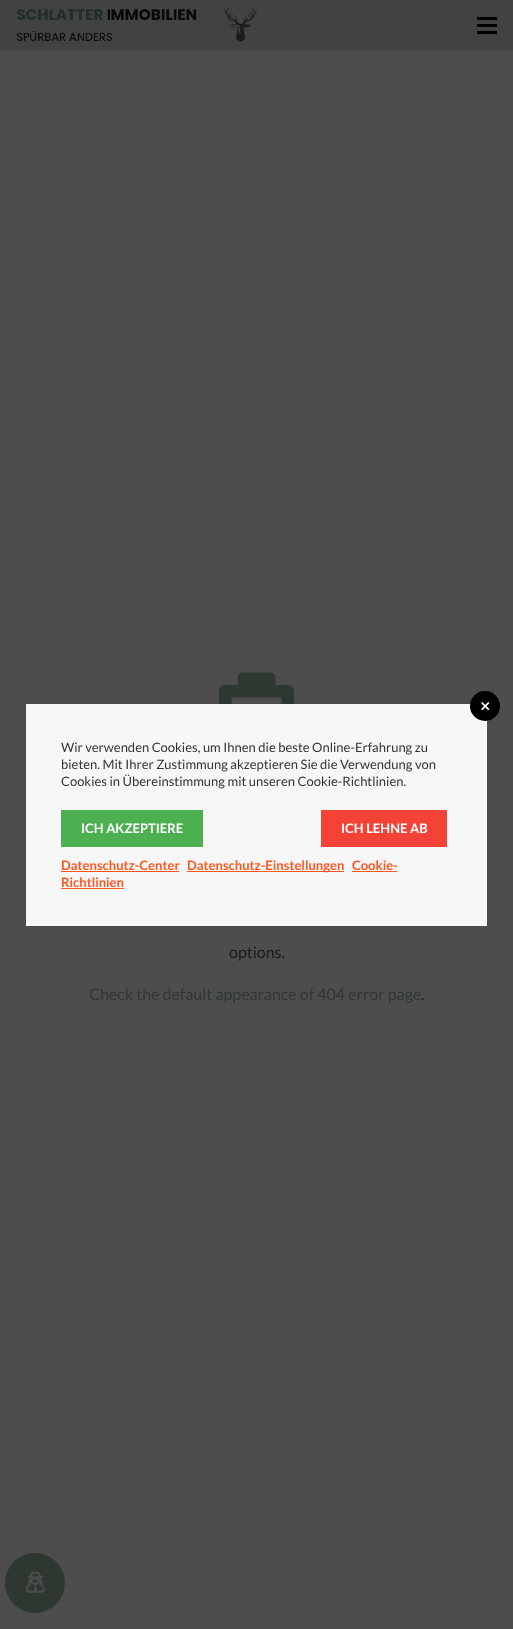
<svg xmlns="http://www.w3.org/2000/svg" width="513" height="1629">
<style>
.a{font:13px Lato;fill:#2f3830}
.b{font:bold 13px Lato;fill:#fff}
.c{font:bold 13px Lato;fill:#ff5722}
.d{font:16px Lato;fill:#181c1d}
.e{font:16px Lato;fill:#2f3830}
</style>
<rect width="100%" height="100%" fill="#4d4d4d"/>
<path fill="#f7f7f7" d="M26 704h461v222H26z"/>
<circle fill="#000" cx="485" cy="706" r="15"/>
<image href="1.png" x="481" y="702" width="9" height="9"/>
<path fill="#4caf50" d="M61 810h142v37H61z"/>
<path fill="#f44336" d="M321 810h126v37H321z"/>
<path fill="#ff5722" d="M61 871h118v1H61z"/>
<path fill="#ff5722" d="M187 871h157v1H187z"/>
<path fill="#ff5722" d="M352 871h45v1H352z"/>
<path fill="#ff5722" d="M61 888h63v1H61z"/>
<path fill="#474747" d="M0 50h513v1H0z"/>
<path fill="#404243" d="M0 0h513v50H0z"/>
<image href="2.png" x="16" y="9" width="181" height="32"/>
<image href="3.png" x="224" y="8" width="33" height="34"/>
<path fill="#000" d="M477 24h20v3H477z"/>
<path fill="#000" d="M477 17h20v3H477z"/>
<path fill="#000" d="M477 31h20v3H477z"/>
<image href="4.png" x="219" y="672" width="75" height="32"/>
<circle fill="#2f3830" cx="35" cy="1583" r="30"/>
<image href="5.png" x="26" y="1571" width="19" height="22"/>
<text class="a" x="61" y="752">Wir verwenden Cookies, um Ihnen die beste Online-Erfahrung zu</text>
<text class="a" x="61" y="769">bieten. Mit Ihrer Zustimmung akzeptieren Sie die Verwendung von</text>
<text class="a" x="61" y="786">Cookies in Übereinstimmung mit unseren Cookie-Richtlinien.</text>
<text class="b" x="81" y="833">ICH AKZEPTIERE</text>
<text class="b" x="341" y="833">ICH LEHNE AB</text>
<text class="c" x="61" y="870">Datenschutz-Center</text>
<text class="c" x="187" y="870">Datenschutz-Einstellungen</text>
<text class="c" x="352" y="870">Cookie-</text>
<text class="c" x="61" y="887">Richtlinien</text>
<text class="d" x="229" y="958">options.</text>
<text class="e" x="89" y="1000">Check the default appearance of 404 error page</text>
<text class="d" x="421" y="1000">.</text>
</svg>
